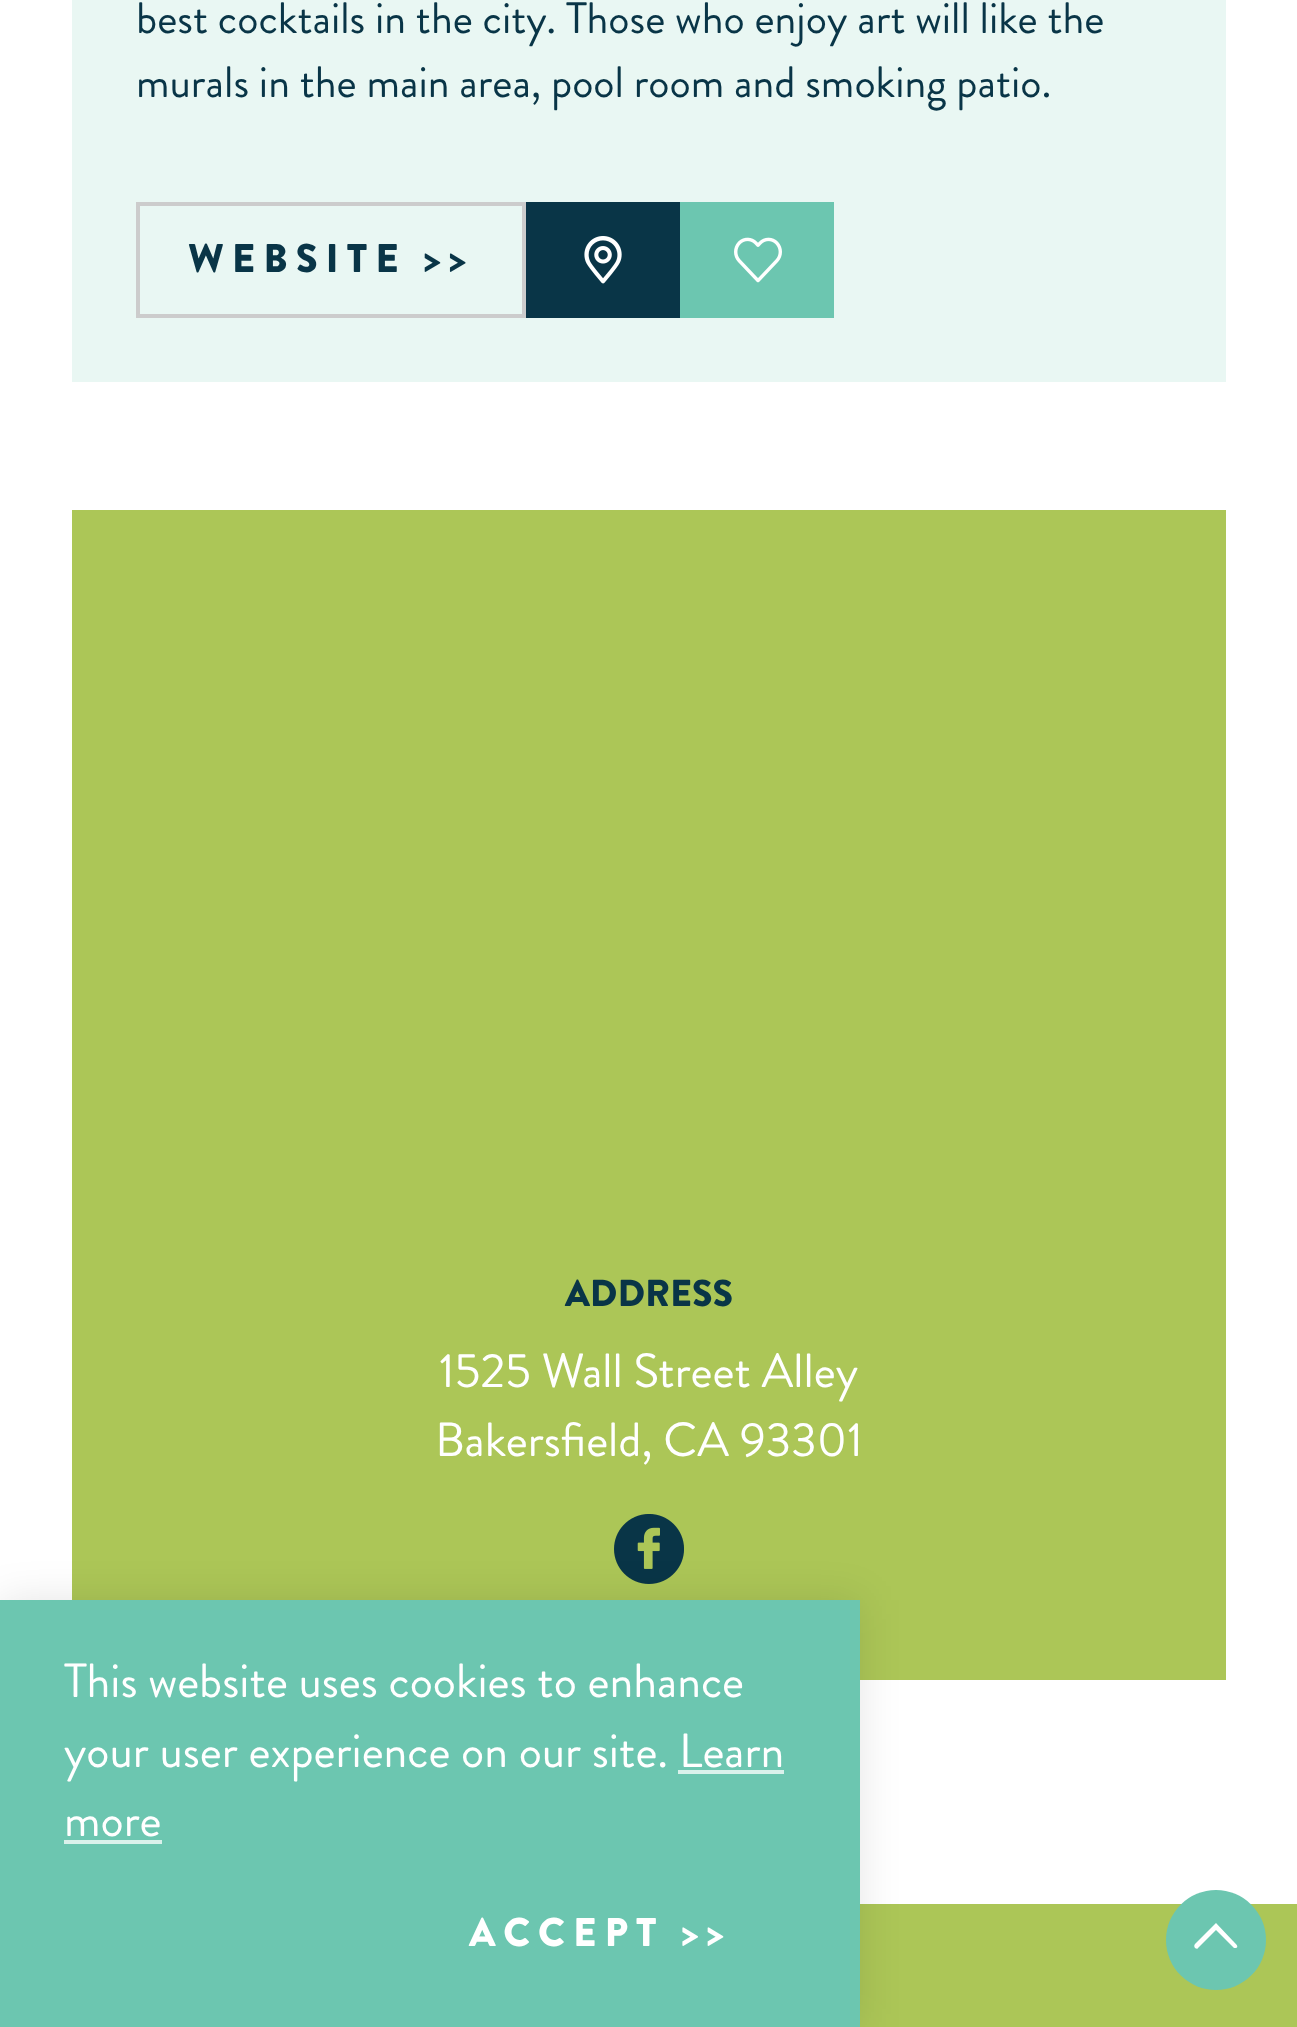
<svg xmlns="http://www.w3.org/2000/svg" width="1297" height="2027">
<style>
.a{font:44px Brandon Grotesque;fill:#093547}
.b{font:900 40px Brandon Grotesque;letter-spacing:8px;fill:#093547}
.c{font:900 37.5px Brandon Grotesque;fill:#093547}
.d{font:48px Brandon Grotesque;fill:#fff}
.e{font:900 40px Brandon Grotesque;letter-spacing:8px;fill:#fff}
</style>
<rect width="100%" height="100%" fill="#fff"/>
<path fill="#e9f7f3" d="M72 0h1154v382H72z"/>
<path fill="none" stroke="#ccc" stroke-width="4" d="M138 204h386v112H138z"/>
<path fill="#093547" d="M526 202h154v116H526z"/>
<image href="1.png" x="584" y="236" width="38" height="48"/>
<path fill="#6cc6b0" d="M680 202h154v116H680z"/>
<image href="2.png" x="734" y="237" width="48" height="46"/>
<path fill="#acc657" d="M72 510h1154v1170H72z"/>
<image href="3.png" x="614" y="1514" width="70" height="70"/>
<path fill="#acc657" d="M860 1904h437v123H860z"/>
<path fill="#0000001a" filter="blur(20px)" d="M0 1600h860v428H0z"/>
<path fill="#6cc6b0" d="M0 1600h860v427H0z"/>
<path fill="#daf1eb" d="M64 1840h98v4H64z"/>
<circle fill="#6cc6b0" cx="1216" cy="1940" r="50"/>
<path fill="#fff" d="M1195 1944c-1 1-1 3 0 4c1 1 3 1 3 0l18-18l18 18h2c4-1-2-6-3-7l-17-18z"/>
<text class="a" x="136" y="33">best cocktails in the city. Those who enjoy art will like the</text>
<text class="a" x="136" y="97">murals in the main area, pool room and smoking patio.</text>
<text class="b" x="188" y="272">WEBSITE &gt;&gt;</text>
<text class="c" x="565" y="1306">ADDRESS</text>
<text class="d" x="439" y="1387">1525 Wall Street Alley</text>
<text class="d" x="435" y="1456">Bakersfield, CA 93301</text>
<text class="d" x="64" y="1697">This website uses cookies to enhance</text>
<text class="d" x="64" y="1767">your user experience on our site. Learn</text>
<text class="d" x="64" y="1836">more</text>
<path fill="#daf1eb" d="M678 1770h106v4H678z"/>
<text class="e" x="469" y="1946">ACCEPT &gt;&gt;</text>
</svg>
